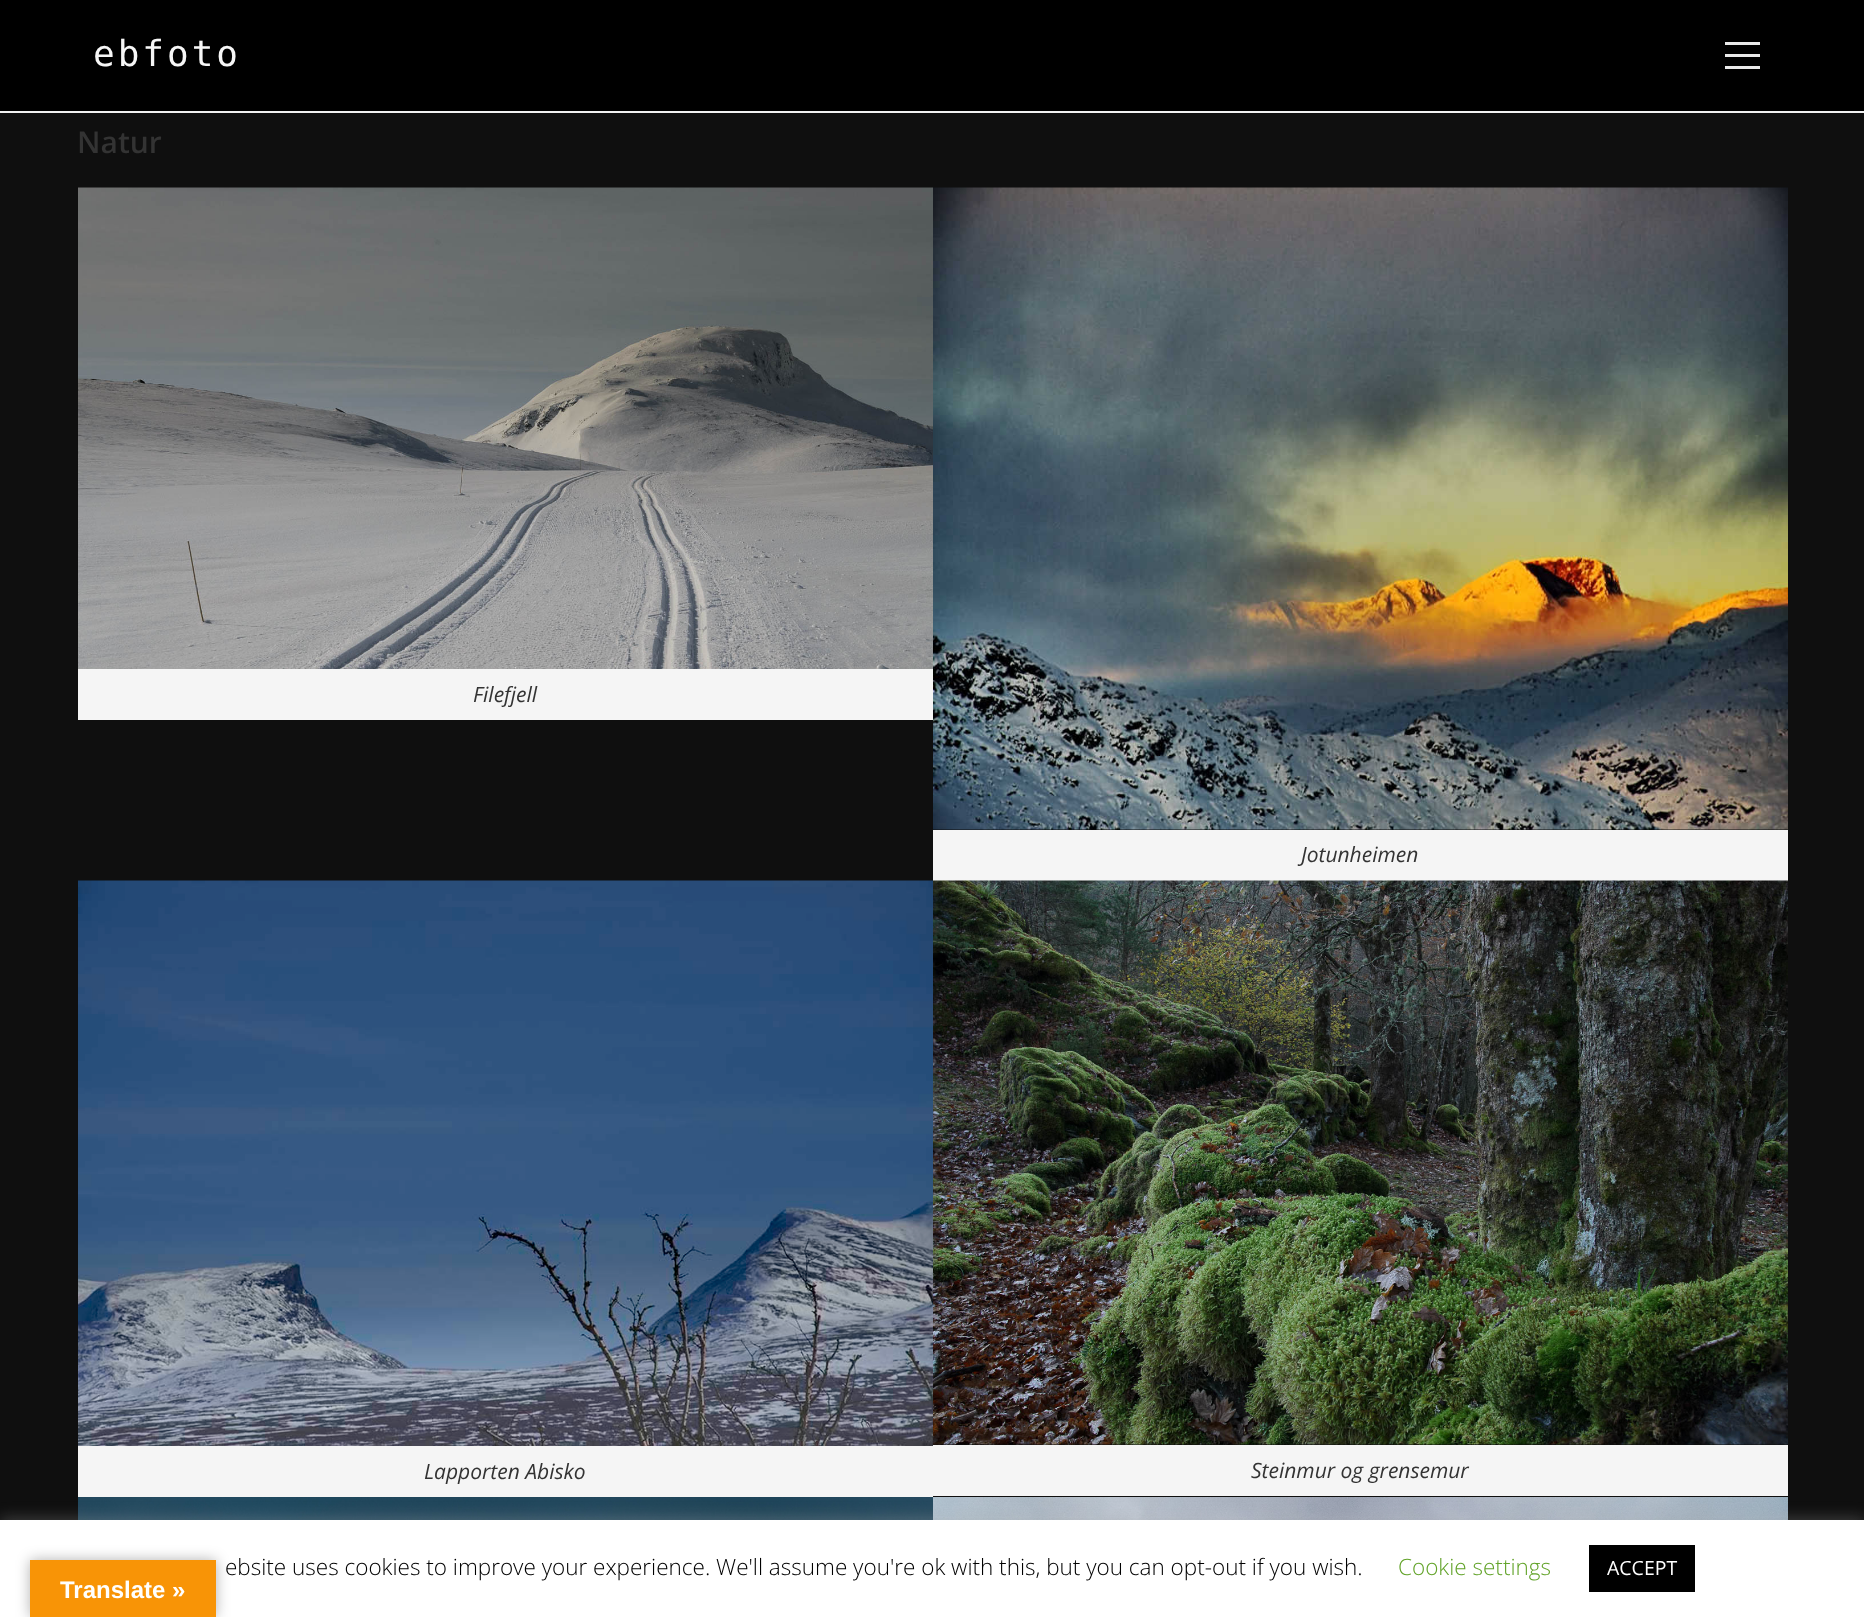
<svg xmlns="http://www.w3.org/2000/svg" width="1864" height="1617">
<style>
.a{font:36px DejaVu Sans Mono;letter-spacing:3px;fill:#f7f7f7}
.b{font:600 30px Open Sans;fill:#333}
.c{font:italic 21px Open Sans;fill:#333}
.d{font:300 22.5px Open Sans;fill:#000}
.e{font:300 22.5px Open Sans;fill:#62a329}
.f{font:19.5px Open Sans;fill:#fff}
.g{font:bold 24px Liberation Sans;fill:#fff}
</style>
<rect width="100%" height="100%" fill="#0f0f0f"/>
<path fill="#000" d="M0 0h1864v111H0z"/>
<path fill="#f1f1f1" d="M0 111h1864v2H0z"/>
<path fill="#eaeaea" d="M1725 54h35v3H1725z"/>
<path fill="#eaeaea" d="M1725 42h35v3H1725z"/>
<path fill="#eaeaea" d="M1725 66h35v3H1725z"/>
<image href="1.png" x="78" y="187" width="855" height="482"/>
<path fill="#f5f5f5" d="M78 669h855v51H78z"/>
<image href="2.png" x="933" y="187" width="855" height="643"/>
<path fill="#f5f5f5" d="M933 830h855v51H933z"/>
<image href="3.png" x="78" y="880" width="855" height="566"/>
<path fill="#f5f5f5" d="M78 1446h855v51H78z"/>
<image href="4.png" x="933" y="880" width="855" height="565"/>
<path fill="#f5f5f5" d="M933 1445h855v51H933z"/>
<image href="5.png" x="78" y="1497" width="855" height="23"/>
<image href="6.png" x="933" y="1497" width="855" height="23"/>
<path fill="#acabab4d" filter="blur(7.5px)" d="M0 1518h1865v98H0z"/>
<path fill="#fff" d="M0 1520h1864v97H0z"/>
<path fill="#000" d="M1589 1545h106v47H1589z"/>
<path fill="#0000004d" filter="blur(7px)" d="M30 1560h186v57H30z"/>
<path fill="#f89406" d="M30 1560h186v57H30z"/>
<text class="a" x="93" y="66">ebfoto</text>
<text class="b" x="77" y="153">Natur</text>
<text class="c" x="473" y="702">Filefjell</text>
<text class="c" x="1301" y="862">Jotunheimen</text>
<text class="c" x="424" y="1479">Lapporten Abisko</text>
<text class="c" x="1251" y="1478">Steinmur og grensemur</text>
<text class="d" x="225" y="1575">ebsite uses cookies to improve your experience. We'll assume you're ok with this, but you can opt-out if you wish.</text>
<text class="e" x="1398" y="1575">Cookie settings</text>
<text class="f" x="1607" y="1575">ACCEPT</text>
<text class="g" x="60" y="1598">Translate »</text>
</svg>
